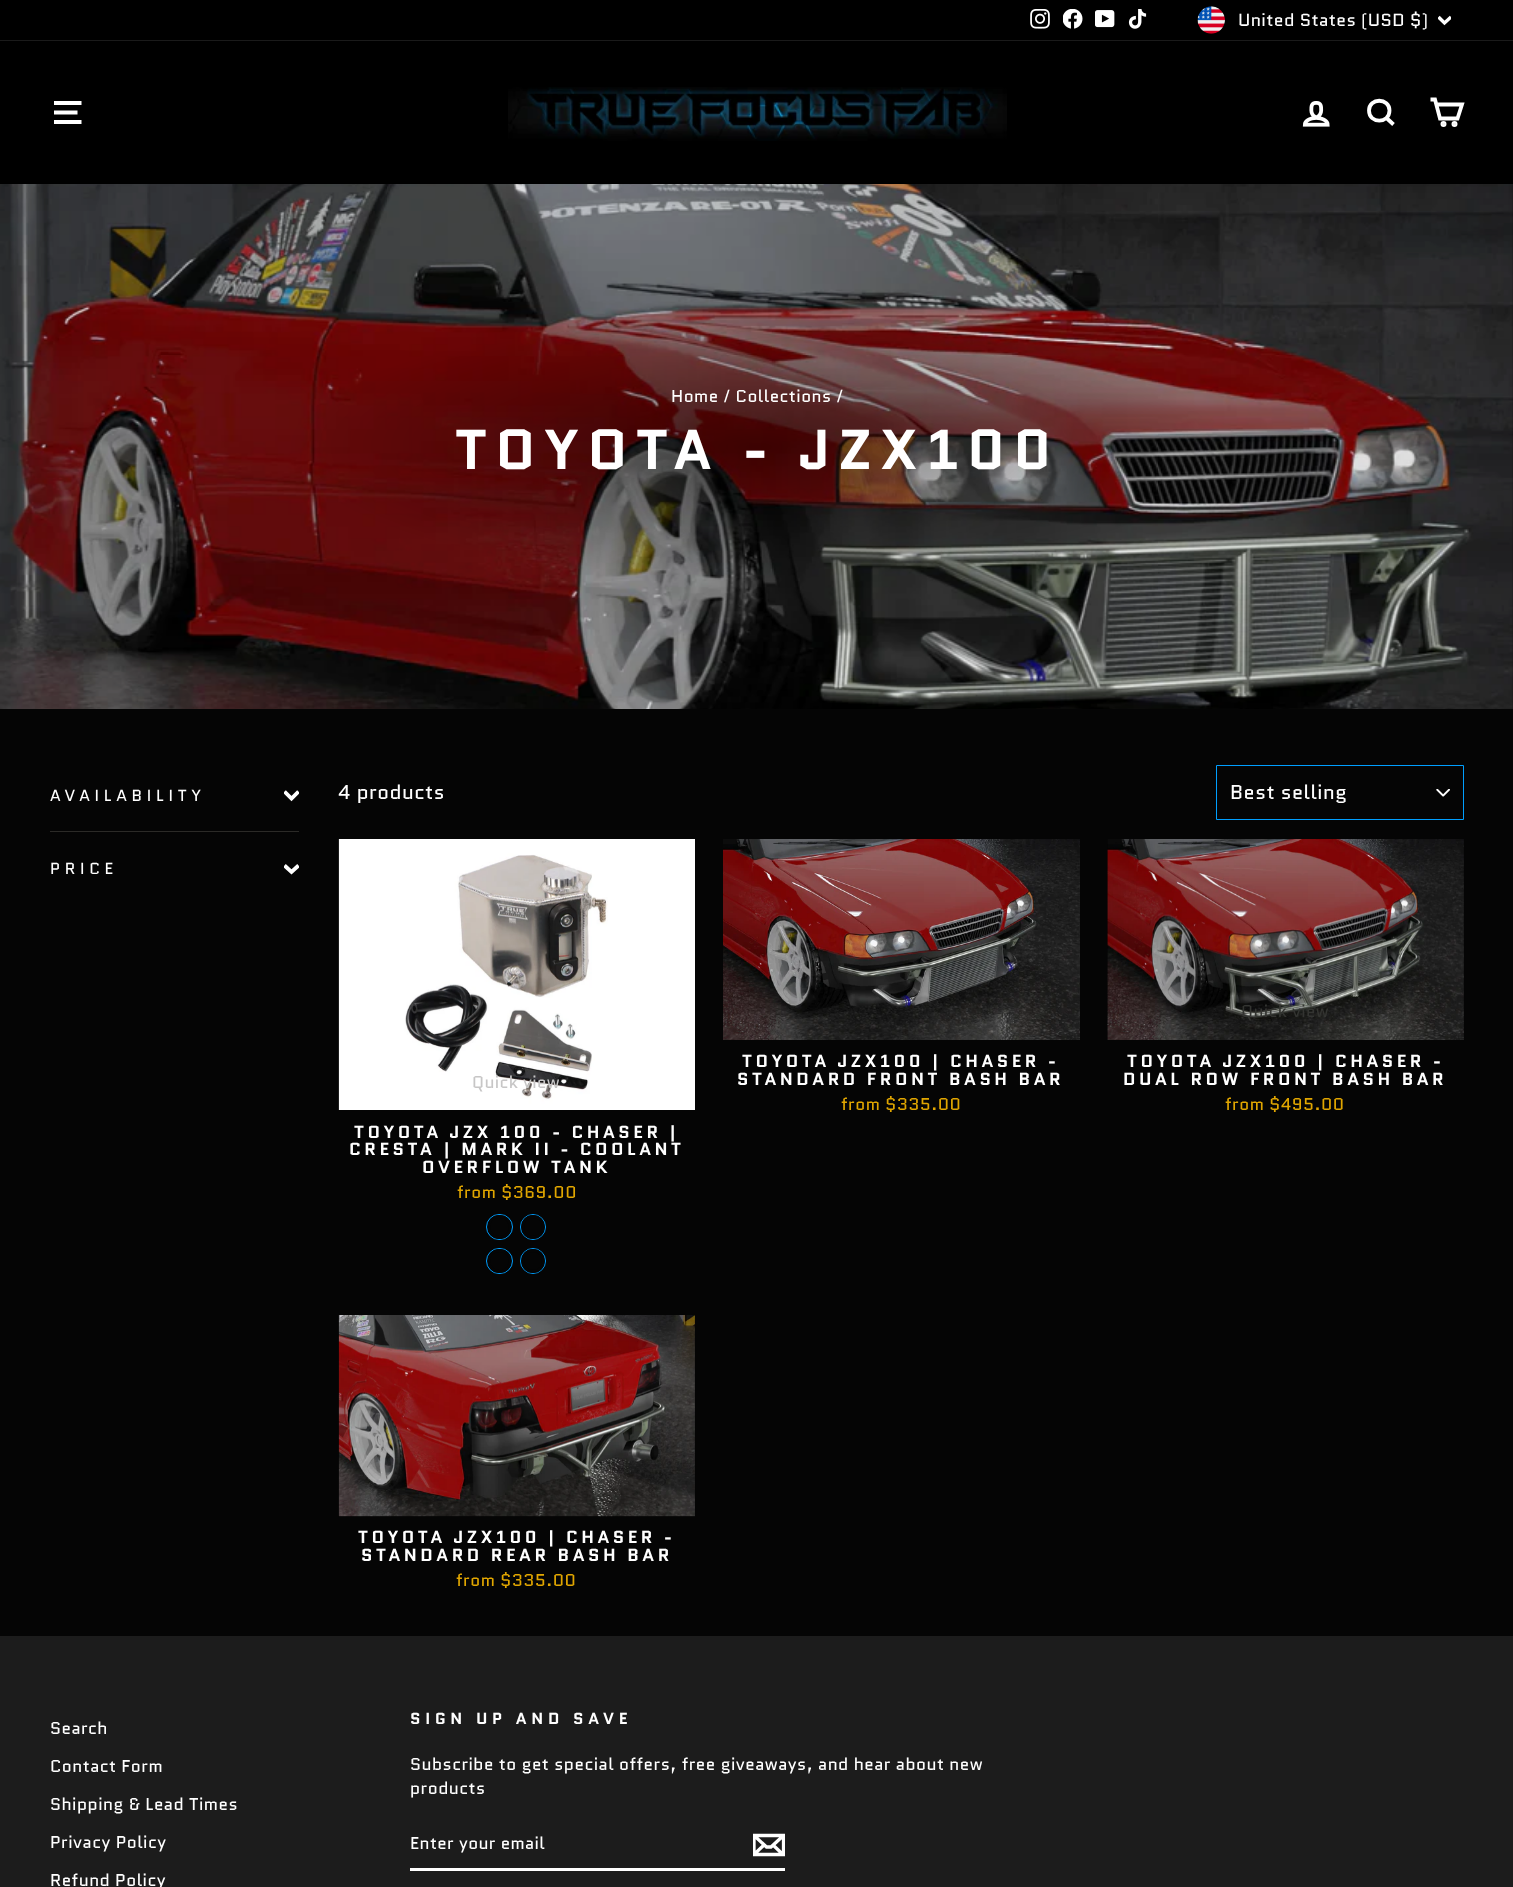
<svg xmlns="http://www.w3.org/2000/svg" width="1513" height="1887">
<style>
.a{font:17.5px Quantico;letter-spacing:0.4px;fill:#fff}
.b{font:17px Quantico;letter-spacing:0.5px;fill:#fff}
.c{font:bold 56.25px Quantico;letter-spacing:8.4px;fill:#fff}
.d{font:16px Quantico;letter-spacing:4.75px;fill:#fff}
.e{font:20px Quantico;letter-spacing:0.5px;fill:#fff}
.f{font:17px Quantico;letter-spacing:0.4px;fill:#c7c6c6}
.g{font:bold 17.5px Quantico;letter-spacing:3.5px;fill:#fff}
.h{font:17px Quantico;letter-spacing:0.5px;fill:#e1a600}
.i{font:17px Quantico;letter-spacing:0.4px;fill:#333431}
.j{font:bold 16px Quantico;letter-spacing:4.75px;fill:#fff}
.k{font:17px Quantico;letter-spacing:0.4px;fill:#fff}
</style>
<defs>
<clipPath id="clip1"><path d="M1438 14h13v14H1438z"/></clipPath>
<clipPath id="clip2"><path d="M284 788h15v15H284z"/></clipPath>
<clipPath id="clip3"><path d="M284 861h15v15H284z"/></clipPath>
<clipPath id="clip4"><path d="M753 1830h32v30H753z"/></clipPath>
</defs>
<rect width="100%" height="100%" fill="#050505"/>
<path fill="#000" d="M0 0h1513v40H0z"/>
<image href="1.png" x="1030" y="9" width="20" height="20"/>
<image href="2.png" x="1063" y="9" width="20" height="20"/>
<image href="3.png" x="1095" y="10" width="20" height="18"/>
<image href="4.png" x="1128" y="9" width="19" height="20"/>
<image href="5.png" x="1197" y="6" width="28" height="28"/>
<g clip-path="url(#clip1)">
<path fill="none" stroke="#fff" stroke-width="3.4" d="M1438.5 17l6 6l6.5-6"/>
</g>
<path fill="#000" d="M0 41h1513v143H0z"/>
<path fill="#1a1a1a" d="M0 40h1513v1H0z"/>
<path fill="none" stroke="#fff" stroke-width="3.8" d="M54 103h27.5m-27.5 9.5h23.5m-23.5 9.5h27.5"/>
<image href="6.png" x="508" y="87" width="499" height="54"/>
<image href="7.png" x="1302" y="101" width="28" height="26"/>
<path fill="none" stroke="#fff" stroke-width="3.8" d="M1389.5 110.5c0 13.5-20.5 13.5-20.5 0c0-13 20.5-13 20.5 0zm4 14l-7-6.5"/>
<path fill="none" stroke="#fff" stroke-width="3.8" d="M1436.5 104.5h25.5l-4.5 14h-17.5l-5-19h-4.5"/>
<circle fill="#fff" stroke="#fff" stroke-width="3.8" cx="1443.5" cy="124" r="1.1"/>
<circle fill="#fff" stroke="#fff" stroke-width="3.8" cx="1454.5" cy="124" r="1.1"/>
<image href="8.png" x="0" y="184" width="1513" height="525"/>
<g clip-path="url(#clip2)">
<path fill="none" stroke="#fff" stroke-width="3.8" d="M284.5 791.5l7 7l7-7"/>
</g>
<path fill="#2b2a27" d="M50 831h249v1H50z"/>
<g clip-path="url(#clip3)">
<path fill="none" stroke="#fff" stroke-width="3.8" d="M284.5 865.5l7 6.5l7-6.5"/>
</g>
<image href="9.png" x="1436" y="789" width="14" height="8"/>
<path fill="none" stroke="#009fff" d="M1216.5 765.5h247v54H1216.5z"/>
<path fill="#fff" d="M608 839h87v271H608z"/>
<image href="10.png" x="338" y="839" width="270" height="271"/>
<rect fill="none" stroke="#009fff" x="486.5" y="1214.5" width="26" height="25" rx="12.5"/>
<circle fill="none" stroke="#009fff" cx="533" cy="1227" r="12.5"/>
<rect fill="none" stroke="#009fff" x="486.5" y="1248.5" width="26" height="25" rx="12.5"/>
<circle fill="none" stroke="#009fff" cx="533" cy="1261" r="12.5"/>
<path fill="#050505" fill-rule="evenodd" d="M499.5 1215c-15.5 0-15.5 24 0 24c15.5 0 15.5-24 0-24zm-.5 3c-11.5 0-12 17 0 18c12.5 1 13-18 1-18zm34-3c-15.5 0-15.5 24 0 24c15.5 0 15.5-24 0-24zm0 3c-12 0-12 18 0 18c12 0 12-18 0-18zm-33.5 31c-15.5 0-15.5 24 0 24c15.5 0 15.5-24 0-24zm-.5 3c-11.5 0-12 17 0 18c12.5 1 13-18 1-18z"/>
<path fill="#050505" fill-rule="evenodd" d="M533 1249c-15.5 0-15.5 24 0 24c15.5 0 15.5-24 0-24zm0 3c-12 0-12 18 0 18c12 0 12-18 0-18z"/>
<image href="11.png" x="723" y="839" width="357" height="201"/>
<image href="12.png" x="1107" y="839" width="357" height="201"/>
<image href="13.png" x="338" y="1315" width="357" height="202"/>
<path fill="#1c1c1c" d="M0 1636h1513v251H0z"/>
<path fill="#fff" d="M410 1868h375v3H410z"/>
<g clip-path="url(#clip4)">
<path fill="none" stroke="#fff" stroke-width="3.3" d="M783.5 1854.5h-29.5v-19h29.5zm-29.5-19l12.5 11.5h4.5l12.5-11.5m-19.5 9.5l-9.5 9m28.5 .5l-10-9.5"/>
</g>
<text class="a" x="1238" y="26">United States (USD $)</text>
<text class="b" x="671" y="402">Home / Collections /</text>
<text class="c" x="455" y="469">TOYOTA - JZX100</text>
<text class="d" x="50" y="801">AVAILABILITY</text>
<text class="d" x="50" y="874">PRICE</text>
<text class="e" x="338" y="799">4 products</text>
<text class="e" x="1230" y="799">Best selling</text>
<text class="f" x="472" y="1088">Quick view</text>
<text class="g" x="354" y="1138">TOYOTA JZX 100 - CHASER |</text>
<text class="g" x="349" y="1155">CRESTA | MARK II - COOLANT</text>
<text class="g" x="422" y="1173">OVERFLOW TANK</text>
<text class="h" x="457" y="1198">from $369.00</text>
<text class="g" x="742" y="1067">TOYOTA JZX100 | CHASER -</text>
<text class="g" x="737" y="1085">STANDARD FRONT BASH BAR</text>
<text class="h" x="841" y="1110">from $335.00</text>
<text class="i" x="1241" y="1017">Quick view</text>
<text class="g" x="1127" y="1067">TOYOTA JZX100 | CHASER -</text>
<text class="g" x="1123" y="1085">DUAL ROW FRONT BASH BAR</text>
<text class="h" x="1225" y="1110">from $495.00</text>
<text class="g" x="358" y="1543">TOYOTA JZX100 | CHASER -</text>
<text class="g" x="361" y="1561">STANDARD REAR BASH BAR</text>
<text class="h" x="456" y="1586">from $335.00</text>
<text class="b" x="50" y="1734">Search</text>
<text class="b" x="50" y="1772">Contact Form</text>
<text class="b" x="50" y="1810">Shipping &amp; Lead Times</text>
<text class="b" x="50" y="1848">Privacy Policy</text>
<text class="b" x="50" y="1886">Refund Policy</text>
<text class="j" x="410" y="1724">SIGN UP AND SAVE</text>
<text class="b" x="410" y="1770">Subscribe to get special offers, free giveaways, and hear about new</text>
<text class="b" x="410" y="1794">products</text>
<text class="k" x="410" y="1849">Enter your email</text>
</svg>
